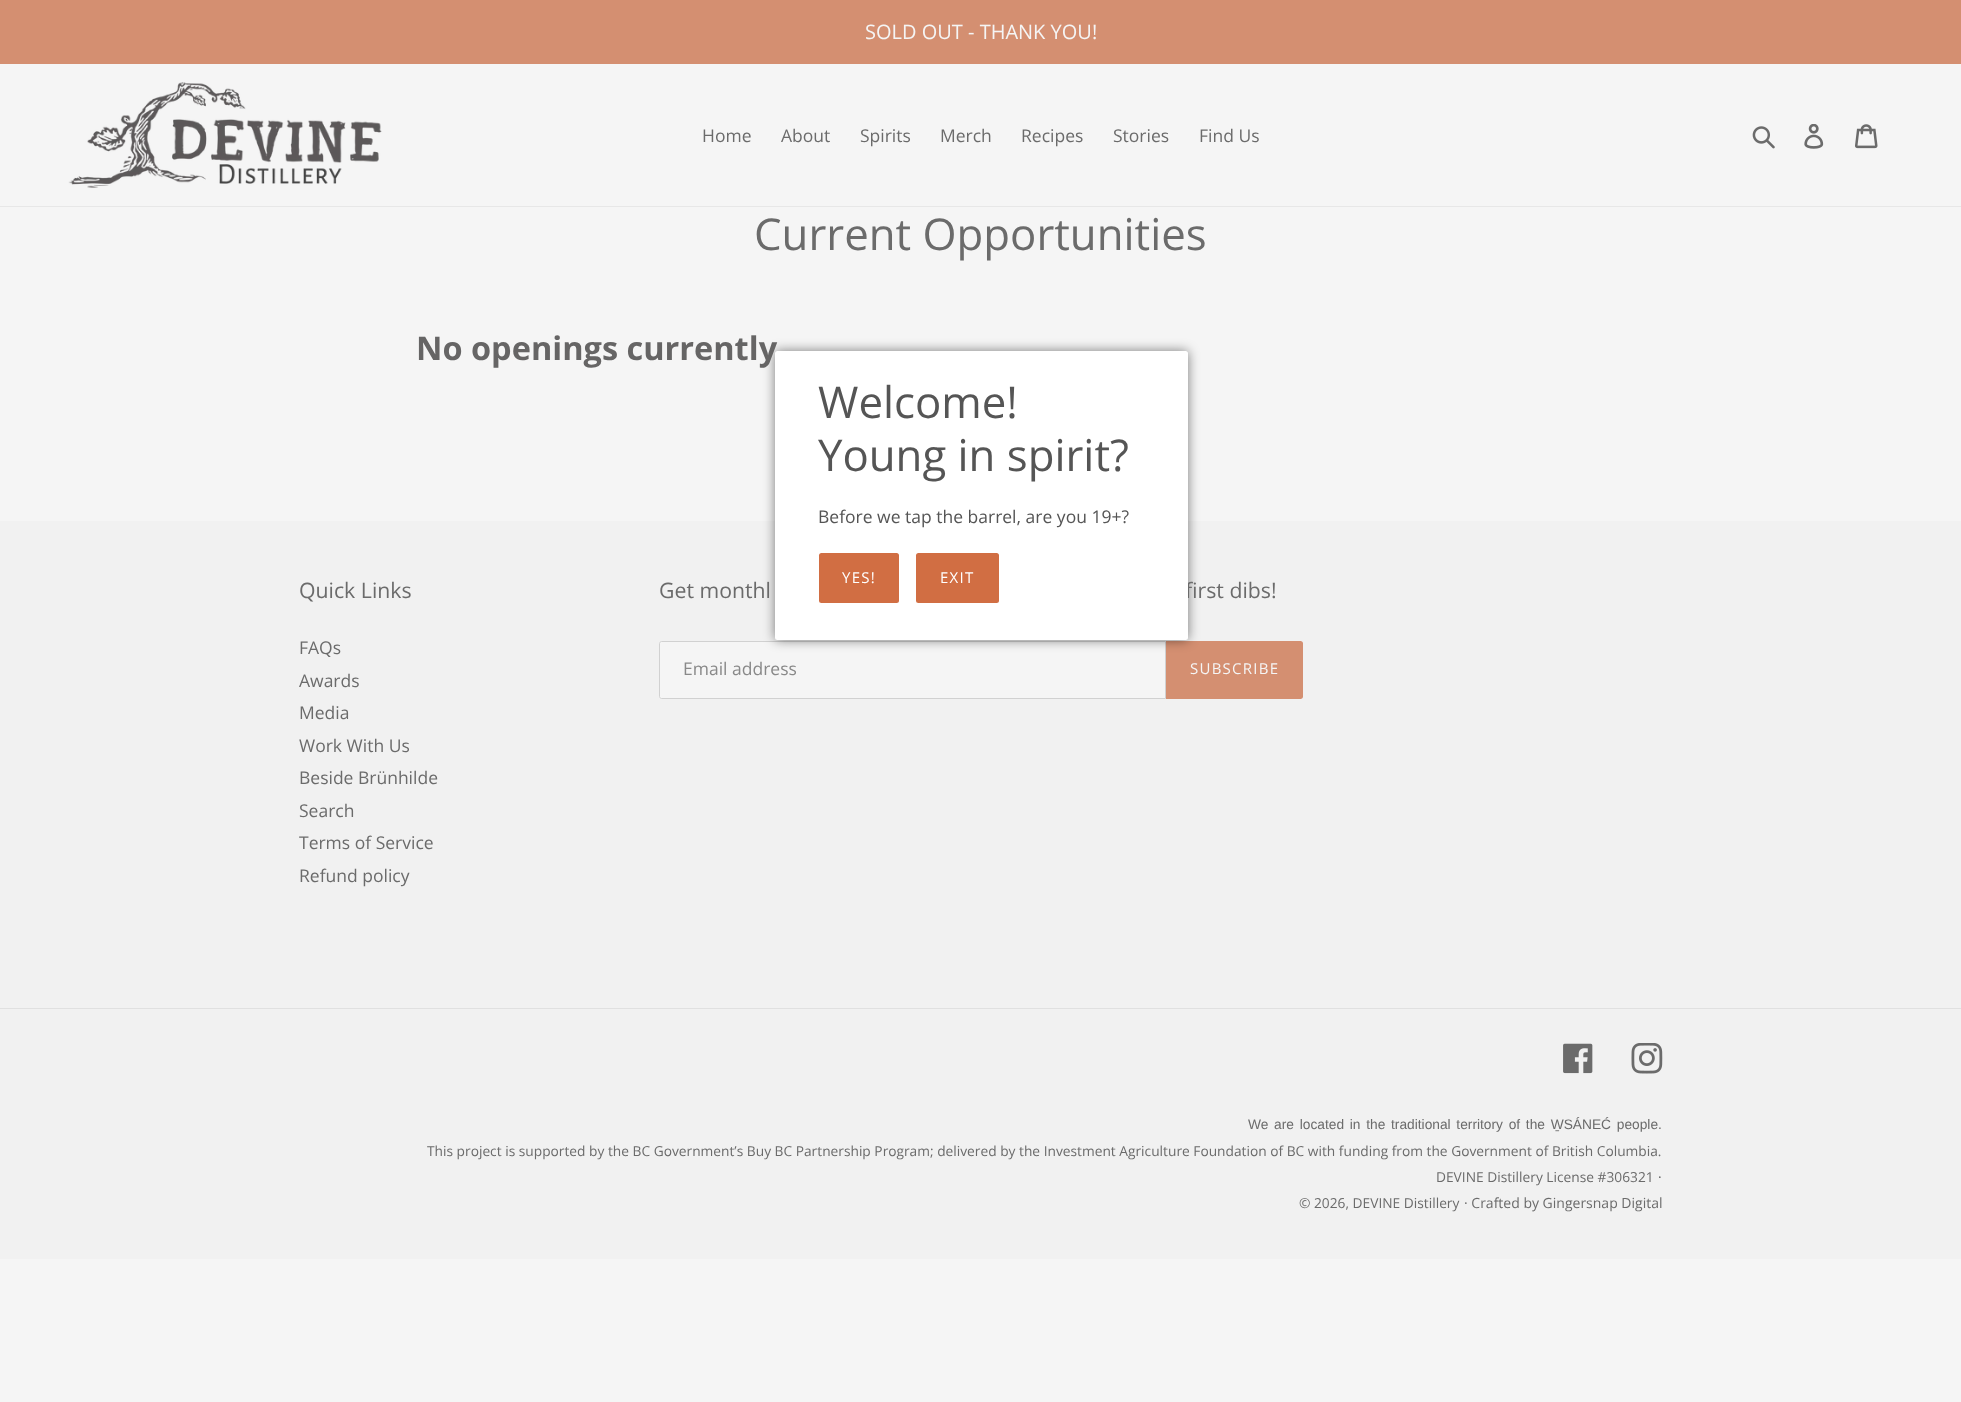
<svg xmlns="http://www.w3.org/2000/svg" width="1961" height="1402">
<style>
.a{font:20px Open Sans;fill:#f5f5f5}
.b{font:17.5px Open Sans;fill:#6b6b6b}
.c{font:43.75px Open Sans;fill:#6b6b6b}
.d{font:bold 32.5px Open Sans;fill:#666565}
.e{font:21.25px Open Sans;fill:#6b6b6b}
.f{font:17.5px Open Sans;fill:#898989}
.g{font:15px Open Sans;letter-spacing:1.25px;fill:#f5f5f5}
.h{font:13.75px Liberation Sans;fill:#6b6b6b}
.i{font:13.75px Open Sans;fill:#6b6b6b}
.j{font:14px Open Sans;fill:#6b6b6b}
.k{font:43.75px Open Sans;fill:#555}
.l{font:17.5px Open Sans;fill:#555}
.m{font:15px Open Sans;letter-spacing:1.25px;fill:#fff}
</style>
<rect width="100%" height="100%" fill="#f5f5f5"/>
<path fill="#d48f71" d="M0 0h1961v64H0z"/>
<path fill="#e7e7e7" d="M0 206h1961v1H0z"/>
<image href="1.png" x="68" y="82" width="314" height="106"/>
<image href="2.png" x="1752" y="126" width="23" height="23"/>
<image href="3.png" x="1804" y="124" width="20" height="25"/>
<image href="4.png" x="1855" y="124" width="23" height="25"/>
<path fill="#f1f1f1" d="M0 521h1961v738H0z"/>
<path fill="#f5f5f5" stroke="#d1d1d1" d="M661.5 641.5h504v57h-504c-1 0-2-1-2-2v-53c0-1 1-2 2-2z"/>
<path fill="#d48f71" d="M1166 641h134.5c1.5 0 2.5 1 2.5 2.5v53c0 1.5-1 2.5-2.5 2.5h-134.5z"/>
<path fill="#e0e0e0" d="M0 1008h1961v1H0z"/>
<image href="5.png" x="1563" y="1043" width="30" height="31"/>
<image href="6.png" x="1631" y="1043" width="32" height="31"/>
<rect fill="#00000080" filter="blur(6px)" x="775" y="351" width="413" height="289" rx="2.5"/>
<text class="a" x="865" y="39">SOLD OUT - THANK YOU!</text>
<text class="b" x="702" y="142">Home</text>
<text class="b" x="781" y="142">About</text>
<text class="b" x="860" y="142">Spirits</text>
<text class="b" x="940" y="142">Merch</text>
<text class="b" x="1021" y="142">Recipes</text>
<text class="b" x="1113" y="142">Stories</text>
<text class="b" x="1199" y="142">Find Us</text>
<text class="c" x="754" y="250">Current Opportunities</text>
<text class="d" x="416" y="360">No openings currently</text>
<text class="e" x="299" y="598">Quick Links</text>
<text class="b" x="299" y="654">FAQs</text>
<text class="b" x="299" y="687">Awards</text>
<text class="b" x="299" y="719">Media</text>
<text class="b" x="299" y="752">Work With Us</text>
<text class="b" x="299" y="784">Beside Brünhilde</text>
<text class="b" x="299" y="817">Search</text>
<text class="b" x="299" y="849">Terms of Service</text>
<text class="b" x="299" y="882">Refund policy</text>
<text class="e" x="659" y="598">Get monthl</text>
<text class="e" x="1185" y="598">first dibs!</text>
<text class="f" x="683" y="675">Email address</text>
<text class="g" x="1190" y="674">SUBSCRIBE</text>
<text class="h" x="1248" y="1129" word-spacing="1.9">We are located in the traditional territory of the W̱SÁNEĆ people.</text>
<text class="i" x="427" y="1156">This project is supported by the BC Government’s Buy BC Partnership Program; delivered by the Investment Agriculture Foundation of BC with funding from the Government of British Columbia.</text>
<text class="i" x="1436" y="1182">DEVINE Distillery License #306321</text>
<text class="i" x="1658" y="1182">·</text>
<text class="i" x="1299" y="1208">© 2026, DEVINE Distillery</text>
<text class="j" x="1464" y="1208">· Crafted by Gingersnap Digital</text>
<rect fill="#fff" x="775" y="351" width="413" height="289" rx="2.5"/>
<text class="k" x="818" y="418">Welcome!</text>
<text class="k" x="818" y="471">Young in spirit?</text>
<text class="l" x="818" y="523">Before we tap the barrel, are you 19+?</text>
<rect fill="#d16e43" x="819" y="553" width="80" height="50" rx="2.5"/>
<text class="m" x="842" y="583">YES!</text>
<rect fill="#d16e43" x="916" y="553" width="83" height="50" rx="2.5"/>
<text class="m" x="940" y="583">EXIT</text>
</svg>
